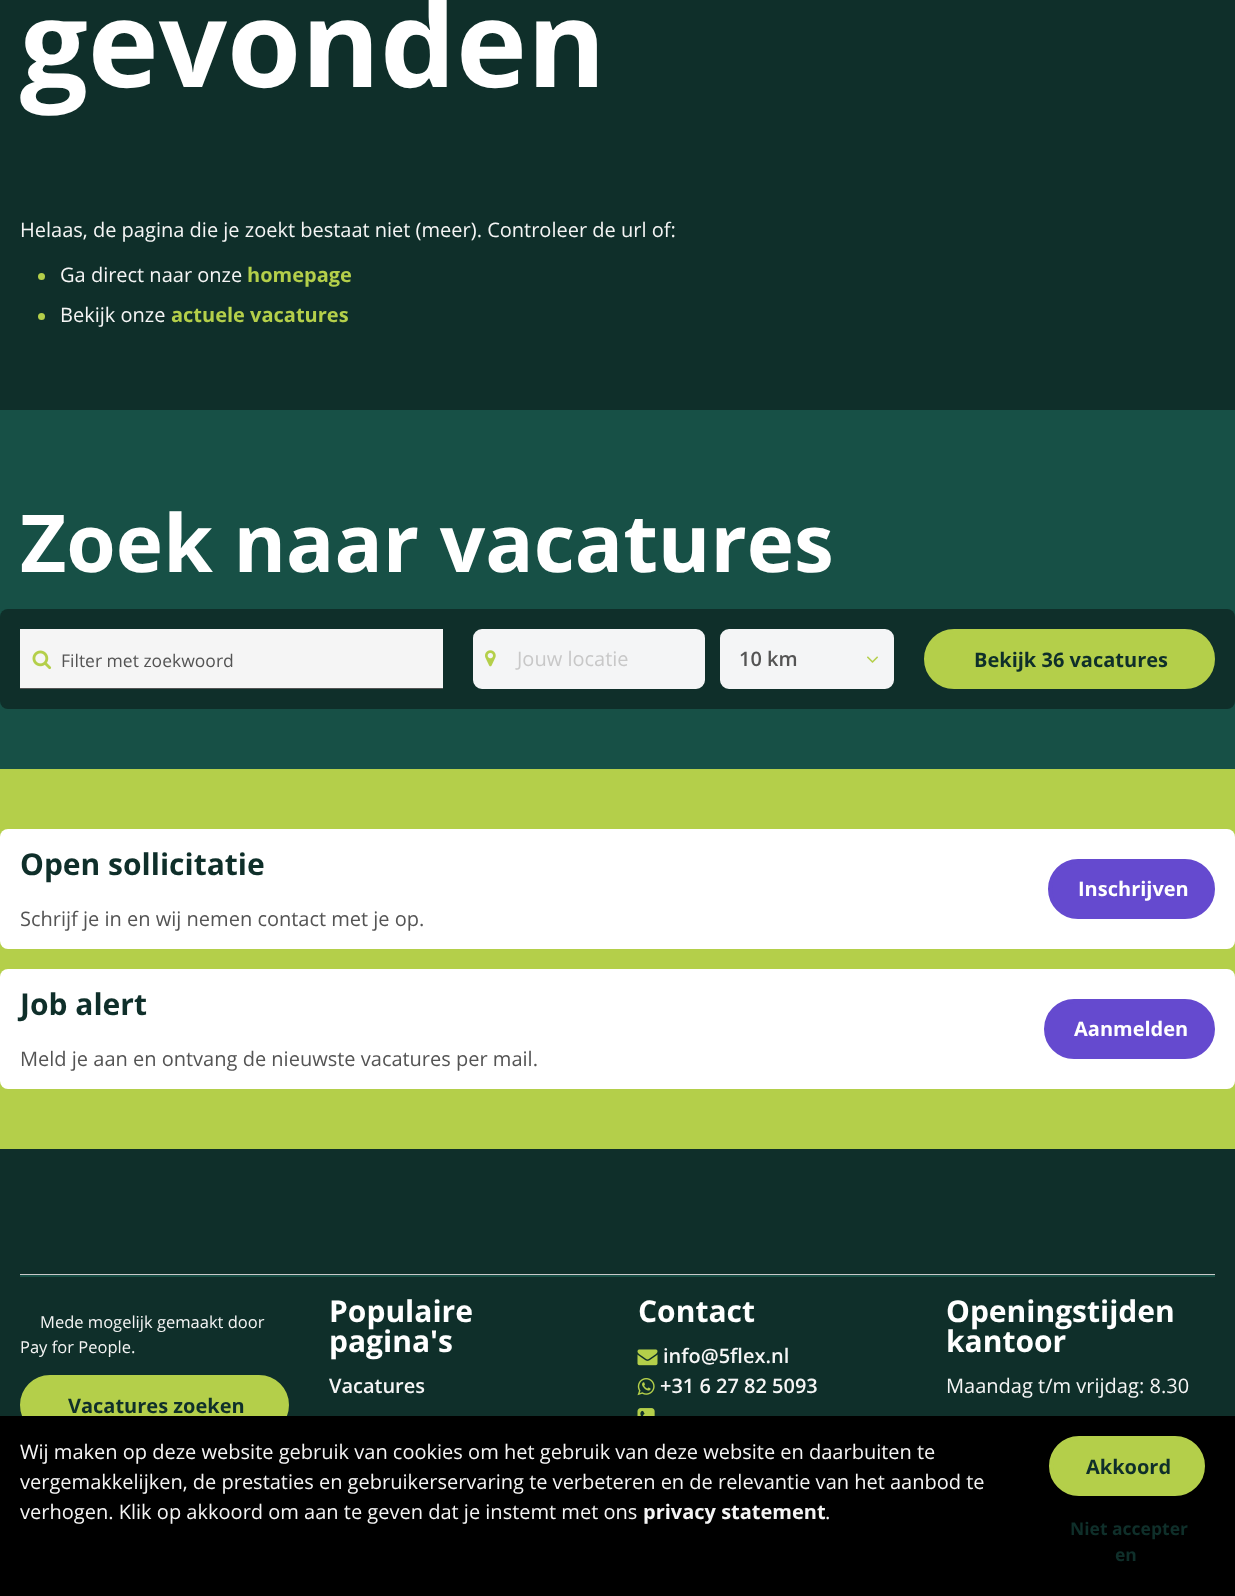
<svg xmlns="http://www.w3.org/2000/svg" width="1235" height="1596">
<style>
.a{font:bold 120px Open Sans;fill:#fff}
.b{font:20px Open Sans;fill:#f5f5f5}
.c{font:bold 20px Open Sans;fill:#b4cf4a}
.d{font:bold 80px Open Sans;fill:#fff}
.e{font:17.5px Open Sans;fill:#545454}
.f{font:20px Open Sans;fill:#c8c8c8}
.g{font:600 20px Open Sans;fill:#545454}
.h{font:bold 20px Open Sans;fill:#0f2f2a}
.i{font:bold 30px Open Sans;fill:#0f2f2a}
.j{font:20px Open Sans;fill:#545454}
.k{font:bold 20px Open Sans;fill:#fff}
.l{font:16.5px Open Sans;fill:#f5f5f5}
.m{font:bold 30px Open Sans;fill:#fff}
.n{font:600 20px Open Sans;fill:#f5f5f5}
.o{font:bold 20px Open Sans;fill:#f5f5f5}
.p{font:bold 17.5px Open Sans;fill:#0f2f2a}
</style>
<rect width="100%" height="100%" fill="#0f2f2a"/>
<circle fill="#b4cf4a" cx="41.5" cy="276.5" r="3.5"/>
<circle fill="#b4cf4a" cx="41.5" cy="316.5" r="3.5"/>
<path fill="#175046" d="M0 410h1235v359H0z"/>
<rect fill="#0f2f2a" y="609" width="1235" height="100" rx="8"/>
<path fill="#f5f5f5" d="M20 629h423v59H20z"/>
<image href="1.png" x="32" y="650" width="20" height="20"/>
<path fill="#545454" d="M20 688h423v1H20z"/>
<rect fill="#f4f5f6" stroke="#f4f5f6" stroke-width="4" x="475" y="631" width="228" height="56" rx="7"/>
<image href="2.png" x="485" y="650" width="11" height="17"/>
<rect fill="#f4f5f6" stroke="#f4f5f6" stroke-width="4" x="722" y="631" width="170" height="56" rx="7"/>
<image href="3.png" x="867" y="656" width="11" height="7"/>
<rect fill="#b4cf4a" stroke="#b4cf4a" stroke-width="4" x="926" y="631" width="287" height="56" rx="28"/>
<path fill="#b4cf4a" d="M0 769h1235v380H0z"/>
<rect fill="#fff" y="829" width="1235" height="120" rx="8"/>
<rect fill="#654acf" stroke="#654acf" stroke-width="4" x="1050" y="861" width="163" height="56" rx="28"/>
<rect fill="#fff" y="969" width="1235" height="120" rx="8"/>
<rect fill="#654acf" stroke="#654acf" stroke-width="4" x="1046" y="1001" width="167" height="56" rx="28"/>
<path fill="#175046" d="M20 1275h1195v2H20z"/>
<path fill="#c8c8c8" d="M20 1274h1195v1H20z"/>
<rect fill="#b4cf4a" stroke="#b4cf4a" stroke-width="4" x="22" y="1377" width="265" height="56" rx="28"/>
<image href="4.png" x="637" y="1349" width="21" height="17"/>
<image href="5.png" x="637" y="1378" width="18" height="18"/>
<image href="6.png" x="637" y="1408" width="18" height="8"/>
<path fill="#000" d="M0 1416h1235v180H0z"/>
<rect fill="#b4cf4a" stroke="#b4cf4a" stroke-width="4" x="1051" y="1438" width="152" height="56" rx="28"/>
<text class="a" x="20" y="87">gevonden</text>
<text class="b" x="20" y="237">Helaas, de pagina die je zoekt bestaat niet (meer). Controleer de url of:</text>
<text class="b" x="60" y="282">Ga direct naar onze</text>
<text class="c" x="247" y="282">homepage</text>
<text class="b" x="60" y="322">Bekijk onze</text>
<text class="c" x="171" y="322">actuele vacatures</text>
<text class="d" x="20" y="572">Zoek naar vacatures</text>
<text class="e" x="61" y="667">Filter met zoekwoord</text>
<text class="f" x="517" y="666">Jouw locatie</text>
<text class="g" x="739" y="666">10 km</text>
<text class="h" x="974" y="667">Bekijk 36 vacatures</text>
<text class="i" x="20" y="875">Open sollicitatie</text>
<text class="j" x="20" y="926">Schrijf je in en wij nemen contact met je op.</text>
<text class="k" x="1078" y="896">Inschrijven</text>
<text class="i" x="20" y="1015">Job alert</text>
<text class="j" x="20" y="1066">Meld je aan en ontvang de nieuwste vacatures per mail.</text>
<text class="k" x="1074" y="1036">Aanmelden</text>
<text class="l" x="40" y="1328">Mede mogelijk gemaakt door</text>
<text class="l" x="20" y="1353">Pay for People.</text>
<text class="h" x="68" y="1413">Vacatures zoeken</text>
<text class="m" x="329" y="1322">Populaire</text>
<text class="m" x="329" y="1352">pagina's</text>
<text class="n" x="329" y="1393">Vacatures</text>
<text class="m" x="638" y="1322">Contact</text>
<text class="n" x="663" y="1363">info@5flex.nl</text>
<text class="n" x="660" y="1393">+31 6 27 82 5093</text>
<text class="m" x="946" y="1322">Openingstijden</text>
<text class="m" x="946" y="1352">kantoor</text>
<text class="b" x="946" y="1393">Maandag t/m vrijdag: 8.30</text>
<text class="b" x="20" y="1459">Wij maken op deze website gebruik van cookies om het gebruik van deze website en daarbuiten te</text>
<text class="b" x="20" y="1489">vergemakkelijken, de prestaties en gebruikerservaring te verbeteren en de relevantie van het aanbod te</text>
<text class="b" x="20" y="1519">verhogen. Klik op akkoord om aan te geven dat je instemt met ons</text>
<text class="o" x="643" y="1519">privacy statement</text>
<text class="b" x="825" y="1519">.</text>
<text class="h" x="1086" y="1474">Akkoord</text>
<text class="p" x="1070" y="1535">Niet accepter</text>
<text class="p" x="1115" y="1561">en</text>
</svg>
